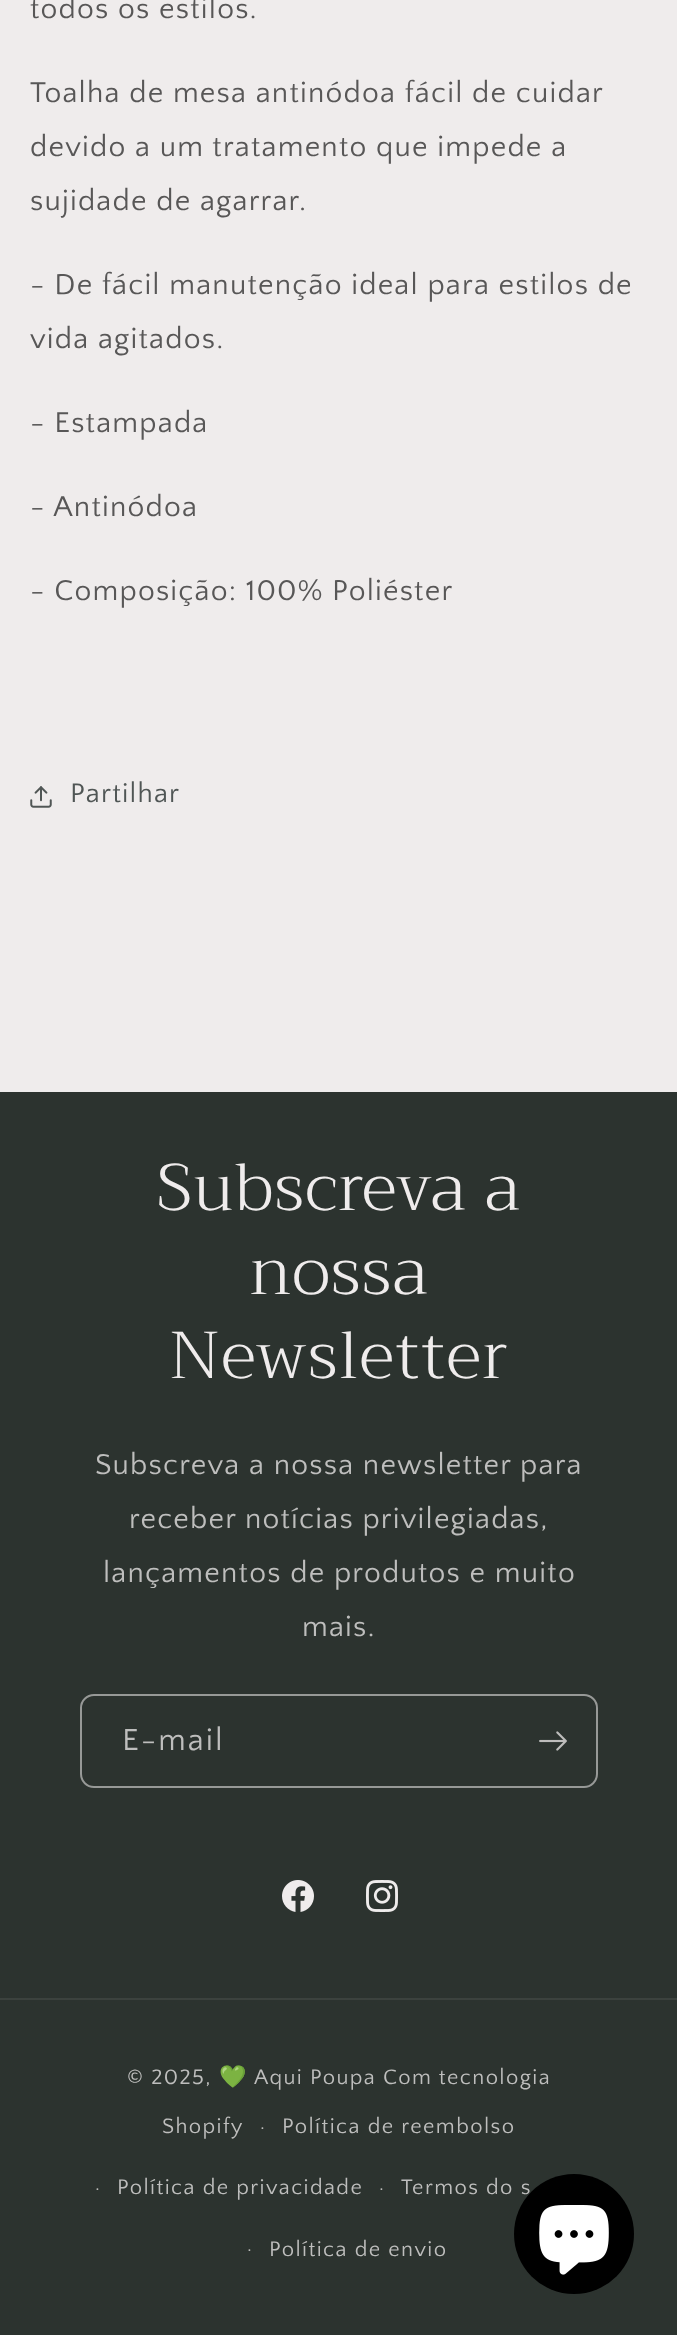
<svg xmlns="http://www.w3.org/2000/svg" width="677" height="2335">
<style>
.a{font:30px Quattrocento Sans;letter-spacing:1.2px;fill:#585757}
.b{font:28px Quattrocento Sans;letter-spacing:1.2px;fill:#505655}
.c{font:300 66px Trirong;letter-spacing:1.25px;fill:#efecec}
.d{font:30px Quattrocento Sans;letter-spacing:1.2px;fill:#bebebd}
.e{font:32px Quattrocento Sans;letter-spacing:2px;fill:#bebebd}
.f{font:22px Quattrocento Sans;letter-spacing:1.4px;fill:#bebebd}
.g{font:22px Noto Color Emoji;letter-spacing:1.4px;fill:#bebebd}
.h{font:20px Quattrocento Sans;letter-spacing:1.4px;fill:#bebebd}
</style>
<rect width="100%" height="100%" fill="#efecec"/>
<image href="1.png" x="30" y="786" width="22" height="22"/>
<path fill="#2c332f" d="M0 1092h677v1243H0z"/>
<rect fill="none" stroke="#979997" stroke-width="2" x="81" y="1695" width="516" height="92" rx="13"/>
<image href="2.png" x="539" y="1731" width="28" height="20"/>
<image href="3.png" x="282" y="1880" width="32" height="32"/>
<image href="4.png" x="366" y="1880" width="32" height="32"/>
<path fill="#3c423e" d="M0 1998h677v2H0z"/>
<text class="a" x="30" y="18">todos os estilos.</text>
<text class="a" x="30" y="102">Toalha de mesa antinódoa fácil de cuidar</text>
<text class="a" x="30" y="156">devido a um tratamento que impede a</text>
<text class="a" x="30" y="210">sujidade de agarrar.</text>
<text class="a" x="30" y="294">- De fácil manutenção ideal para estilos de</text>
<text class="a" x="30" y="348">vida agitados.</text>
<text class="a" x="30" y="432">- Estampada</text>
<text class="a" x="30" y="516">- Antinódoa</text>
<text class="a" x="30" y="600">- Composição: 100% Poliéster</text>
<text class="b" x="70" y="802">Partilhar</text>
<text class="c" x="157" y="1210">Subscreva a</text>
<text class="c" x="249" y="1294">nossa</text>
<text class="c" x="169" y="1378">Newsletter</text>
<text class="d" x="95" y="1474">Subscreva a nossa newsletter para</text>
<text class="d" x="129" y="1528">receber notícias privilegiadas,</text>
<text class="d" x="103" y="1582">lançamentos de produtos e muito</text>
<text class="d" x="302" y="1636">mais.</text>
<text class="e" x="122" y="1750">E-mail</text>
<text class="f" x="127" y="2084">© 2025,</text>
<text class="g" x="219" y="2084">💚</text>
<text class="f" x="254" y="2084">Aqui Poupa</text>
<text class="f" x="383" y="2084">Com tecnologia</text>
<text class="h" x="260" y="2133">·</text>
<text class="f" x="282" y="2133">Política de reembolso</text>
<text class="h" x="95" y="2194">·</text>
<text class="f" x="117" y="2194">Política de privacidade</text>
<text class="h" x="379" y="2194">·</text>
<text class="f" x="401" y="2194">Termos do s</text>
<text class="h" x="247" y="2255">·</text>
<text class="f" x="269" y="2256">Política de envio</text>
<text class="f" x="162" y="2133">Shopify</text>
<circle fill="#000" cx="574" cy="2234" r="60"/>
<image href="5.png" x="539" y="2205" width="70" height="70"/>
</svg>
